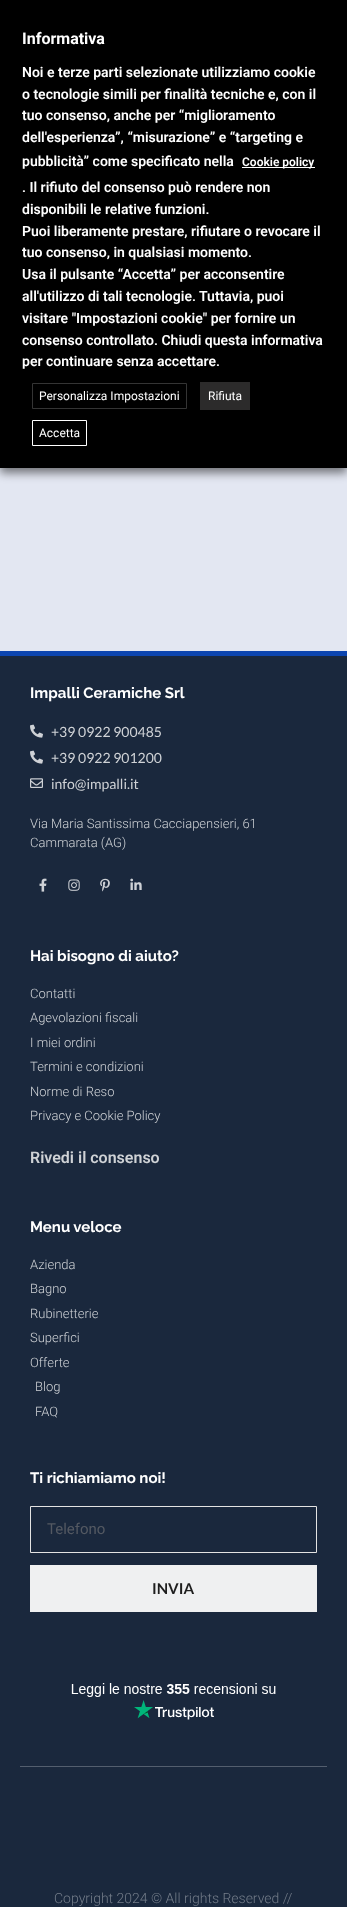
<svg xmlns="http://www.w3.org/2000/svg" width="347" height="1907">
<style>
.a{font:bold 16px Roboto;fill:#fff}
.b{font:600 14px Roboto;fill:#fff}
.c{font:600 12px Roboto;fill:#fff}
.d{font:12px Roboto;fill:#fff}
.e{font:bold 15px Raleway;fill:#fff}
.f{font:14px Lato;fill:#cfd2d6}
.g{font:300 13px Roboto;fill:#cfd2d6}
.h{font:600 16px Roboto;fill:#cfd2d6}
.i{font:15px Roboto;fill:#545962}
.j{font:bold 15px Lato;fill:#1e1e1e}
.k{font:300 14px Roboto;fill:#737c89}
</style>
<rect width="100%" height="100%" fill="#1a283d"/>
<path fill="#e3e7f2" d="M0 468h347v183H0z"/>
<path fill="#00000080" filter="blur(5px)" d="M0 5h347v468H0z"/>
<path fill="#000" d="M0 0h347v468H0z"/>
<path fill="#fff" d="M242 167h73v1H242z"/>
<path fill="none" stroke="#343434" d="M32.5 383.5h154v25H32.5z"/>
<path fill="#2c2b2b" d="M200 382h50v28H200z"/>
<path fill="none" stroke="#fff" d="M32.5 420.5h54v25H32.5z"/>
<path fill="#0c45b0" d="M0 651h347v5H0z"/>
<image href="1.png" x="30" y="724" width="13" height="14"/>
<image href="1.png" x="30" y="750" width="13" height="14"/>
<image href="2.png" x="30" y="778" width="13" height="10"/>
<image href="3.png" x="39" y="878" width="8" height="14"/>
<image href="4.png" x="68" y="879" width="12" height="12"/>
<image href="5.png" x="100" y="878" width="10" height="14"/>
<image href="6.png" x="130" y="878" width="12" height="12"/>
<path fill="none" stroke="#e3e3e3" d="M30.5 1506.5h286v46H30.5z"/>
<path fill="#eff0f1" d="M30 1565h287v47H30z"/>
<image href="7.png" x="71" y="1683" width="205" height="37"/>
<path fill="#535e6e" d="M20 1766h307v1H20z"/>
<text class="a" x="22" y="44">Informativa</text>
<text class="b" x="22" y="77">Noi e terze parti selezionate utilizziamo cookie</text>
<text class="b" x="22" y="99">o tecnologie simili per finalità tecniche e, con il</text>
<text class="b" x="22" y="120">tuo consenso, anche per “miglioramento</text>
<text class="b" x="22" y="142">dell'esperienza”, “misurazione” e “targeting e</text>
<text class="b" x="22" y="166">pubblicità” come specificato nella</text>
<text class="c" x="242" y="166">Cookie policy</text>
<text class="b" x="22" y="192">. Il rifiuto del consenso può rendere non</text>
<text class="b" x="22" y="214">disponibili le relative funzioni.</text>
<text class="b" x="22" y="236">Puoi liberamente prestare, rifiutare o revocare il</text>
<text class="b" x="22" y="257">tuo consenso, in qualsiasi momento.</text>
<text class="b" x="22" y="279">Usa il pulsante “Accetta” per acconsentire</text>
<text class="b" x="22" y="301">all'utilizzo di tali tecnologie. Tuttavia, puoi</text>
<text class="b" x="22" y="323">visitare "Impostazioni cookie" per fornire un</text>
<text class="b" x="22" y="345">consenso controllato. Chiudi questa informativa</text>
<text class="b" x="22" y="366">per continuare senza accettare.</text>
<text class="d" x="39" y="400">Personalizza Impostazioni</text>
<text class="d" x="208" y="400">Rifiuta</text>
<text class="d" x="39" y="437">Accetta</text>
<text class="e" x="30" y="698">Impalli Ceramiche Srl</text>
<text class="f" x="51" y="737">+39 0922 900485</text>
<text class="f" x="51" y="763">+39 0922 901200</text>
<text class="f" x="51" y="789">info@impalli.it</text>
<text class="g" x="30" y="828">Via Maria Santissima Cacciapensieri, 61</text>
<text class="g" x="30" y="847">Cammarata (AG)</text>
<text class="e" x="30" y="961">Hai bisogno di aiuto?</text>
<text class="g" x="30" y="998">Contatti</text>
<text class="g" x="30" y="1022">Agevolazioni fiscali</text>
<text class="g" x="30" y="1047">I miei ordini</text>
<text class="g" x="30" y="1071">Termini e condizioni</text>
<text class="g" x="30" y="1096">Norme di Reso</text>
<text class="g" x="30" y="1120">Privacy e Cookie Policy</text>
<text class="h" x="30" y="1163">Rivedi il consenso</text>
<text class="e" x="30" y="1232">Menu veloce</text>
<text class="g" x="30" y="1269">Azienda</text>
<text class="g" x="30" y="1293">Bagno</text>
<text class="g" x="30" y="1318">Rubinetterie</text>
<text class="g" x="30" y="1342">Superfici</text>
<text class="g" x="30" y="1367">Offerte</text>
<text class="g" x="35" y="1391">Blog</text>
<text class="g" x="35" y="1416">FAQ</text>
<text class="e" x="30" y="1483">Ti richiamiamo noi!</text>
<text class="i" x="47" y="1534">Telefono</text>
<text class="j" x="152" y="1594">INVIA</text>
<text class="k" x="54" y="1903">Copyright 2024 © All rights Reserved //</text>
</svg>
